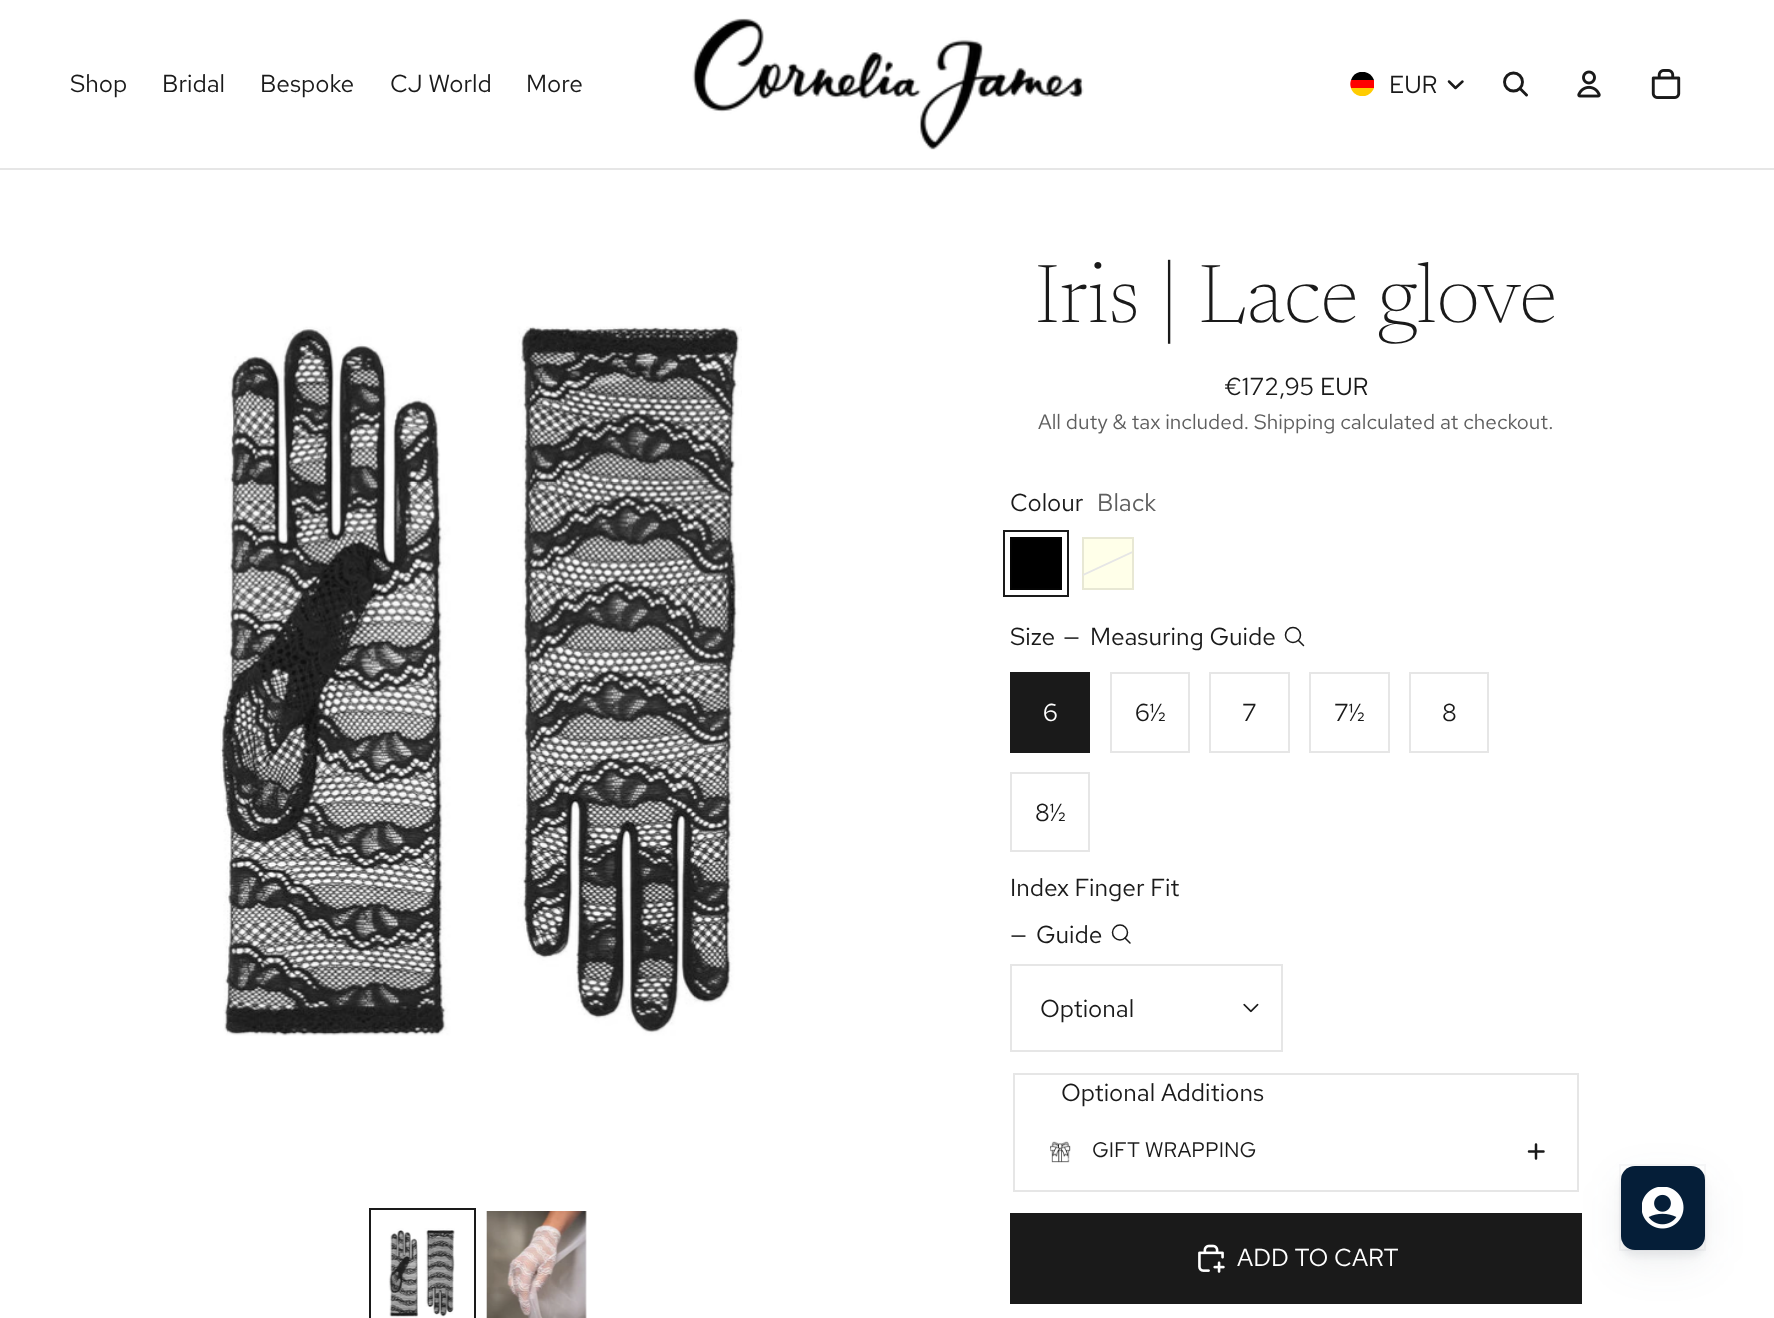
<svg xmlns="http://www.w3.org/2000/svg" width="1774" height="1318">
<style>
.a{font:24.5px Red Hat Text;fill:#1a1a1a}
.b{font:200 84px Newsreader;fill:#1a1a1a}
.c{font:20.8px Red Hat Text;fill:#5f5f5f}
.d{font:24.5px Red Hat Text;fill:#5f5f5f}
.e{font:24.5px Red Hat Text;fill:#fff}
.f{font:21px Red Hat Text;fill:#1a1a1a}
</style>
<defs>
<clipPath id="clip1"><path d="M1349 72h25v24H1349z"/></clipPath>
<clipPath id="clip2"><path d="M1083 539h49v49H1083z"/></clipPath>
</defs>
<rect width="100%" height="100%" fill="#fff"/>
<path fill="#e6e6e6" d="M0 168h1774v2H0z"/>
<image href="1.png" x="692" y="18" width="392" height="132"/>
<path fill="#fc0" d="M1360 96c-4.5-1-8-4-9-8h23c-1.5 4-5 7-9 8z"/>
<g clip-path="url(#clip1)">
<path fill="#000" d="M1351 80c3.5-11 19-11 23 0z"/>
<path fill="#f00" d="M1351 88c-1-2.5-1-5.5 0-8h23c1 2.5 1 5.5 0 8z"/>
</g>
<path fill="none" stroke="#1a1a1a" stroke-width="2.5" stroke-linecap="round" stroke-linejoin="round" d="M1462.5 81.5l-7 6.5l-6.5-6.5"/>
<circle fill="none" stroke="#1a1a1a" stroke-width="2.9" cx="1513.5" cy="82" r="9"/>
<path fill="none" stroke="#1a1a1a" stroke-width="2.9" stroke-linecap="round" stroke-linejoin="round" d="M1520.5 89l6 6"/>
<image href="2.png" x="1577" y="70" width="24" height="28"/>
<image href="3.png" x="1651" y="69" width="30" height="30"/>
<image href="4.png" x="220" y="326" width="522" height="710"/>
<image href="5.png" x="388" y="1228" width="67" height="90"/>
<path fill="none" stroke="#1a1a1a" stroke-width="2" d="M370 1209h105v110H370z"/>
<image href="6.png" x="486" y="1211" width="101" height="107"/>
<path fill="#000" stroke="#030303" stroke-width="2" d="M1011 538h50v51H1011z"/>
<path fill="none" stroke="#1a1a1a" stroke-width="2" d="M1004 531h64v65H1004z"/>
<path fill="#ffffe9" stroke="#e8e8d4" stroke-width="2" d="M1083 538h50v51H1083z"/>
<g clip-path="url(#clip2)">
<path fill="none" stroke="#e6e6e6" stroke-width="1.8" d="M1161 539l-106.5 49m106.5-49l-106.5 49"/>
</g>
<circle fill="none" stroke="#1a1a1a" stroke-width="1.5" cx="1293" cy="635" r="7.5"/>
<path fill="none" stroke="#1a1a1a" stroke-width="1.5" stroke-linecap="round" stroke-linejoin="round" d="M1298.5 640.5l5 5"/>
<path fill="#1a1a1a" d="M1010 672h80v81H1010z"/>
<path fill="none" stroke="#e6e6e6" stroke-width="2" d="M1111 673h78v79H1111z"/>
<path fill="none" stroke="#e6e6e6" stroke-width="2" d="M1210 673h79v79H1210z"/>
<path fill="none" stroke="#e6e6e6" stroke-width="2" d="M1310 673h79v79H1310z"/>
<path fill="none" stroke="#e6e6e6" stroke-width="2" d="M1410 673h78v79H1410z"/>
<path fill="none" stroke="#e6e6e6" stroke-width="2" d="M1011 773h78v78H1011z"/>
<circle fill="none" stroke="#1a1a1a" stroke-width="1.5" cx="1120" cy="932.5" r="7.5"/>
<path fill="none" stroke="#1a1a1a" stroke-width="1.5" stroke-linecap="round" stroke-linejoin="round" d="M1125 938l5 5"/>
<path fill="none" stroke="#e6e6e6" stroke-width="2" d="M1011 965h271v86H1011z"/>
<image href="7.png" x="1243" y="1003" width="16" height="10"/>
<path fill="none" stroke="#e6e6e6" stroke-width="2" d="M1014 1074h564v117H1014z"/>
<image href="8.png" x="1050" y="1141" width="21" height="22"/>
<path fill="none" stroke="#1a1a1a" stroke-width="2.5" stroke-linecap="round" d="M1529 1151.5h14.5m-7.5-7v14"/>
<path fill="#1a1a1a" d="M1010 1213h572v91H1010z"/>
<image href="9.png" x="1198" y="1244" width="27" height="29"/>
<rect fill="#373f4714" filter="blur(21px)" x="1621" y="1180" width="84" height="84" rx="14"/>
<rect fill="#373f4714" filter="blur(3.5px)" x="1621" y="1173" width="84" height="84" rx="14"/>
<path fill="none" stroke="#373f470a" stroke-width="2" d="M1620 1165h85v85H1620z"/>
<rect fill="#051e38" x="1621" y="1166" width="84" height="84" rx="14"/>
<image href="10.png" x="1642" y="1187" width="42" height="42"/>
<text class="a" x="70" y="92">Shop</text>
<text class="a" x="162" y="92">Bridal</text>
<text class="a" x="260" y="92">Bespoke</text>
<text class="a" x="390" y="92">CJ World</text>
<text class="a" x="526" y="92">More</text>
<text class="a" x="1389" y="93">EUR</text>
<text class="b" x="1035" y="322">Iris | Lace glove</text>
<text class="a" x="1224" y="395">€172,95 EUR</text>
<text class="c" x="1038" y="429">All duty &amp; tax included. Shipping calculated at checkout.</text>
<text class="a" x="1010" y="511">Colour</text>
<text class="d" x="1097" y="511">Black</text>
<text class="a" x="1010" y="645">Size</text>
<text class="a" x="1063" y="645">—</text>
<text class="a" x="1090" y="645">Measuring Guide</text>
<text class="e" x="1043" y="721">6</text>
<text class="a" x="1135" y="721">6½</text>
<text class="a" x="1242" y="721">7</text>
<text class="a" x="1334" y="721">7½</text>
<text class="a" x="1442" y="721">8</text>
<text class="a" x="1035" y="821">8½</text>
<text class="a" x="1010" y="896">Index Finger Fit</text>
<text class="a" x="1010" y="943">—</text>
<text class="a" x="1036" y="943">Guide</text>
<text class="a" x="1040" y="1017">Optional</text>
<text class="a" x="1061" y="1101">Optional Additions</text>
<text class="f" x="1092" y="1157">GIFT WRAPPING</text>
<text class="e" x="1237" y="1266">ADD TO CART</text>
</svg>
